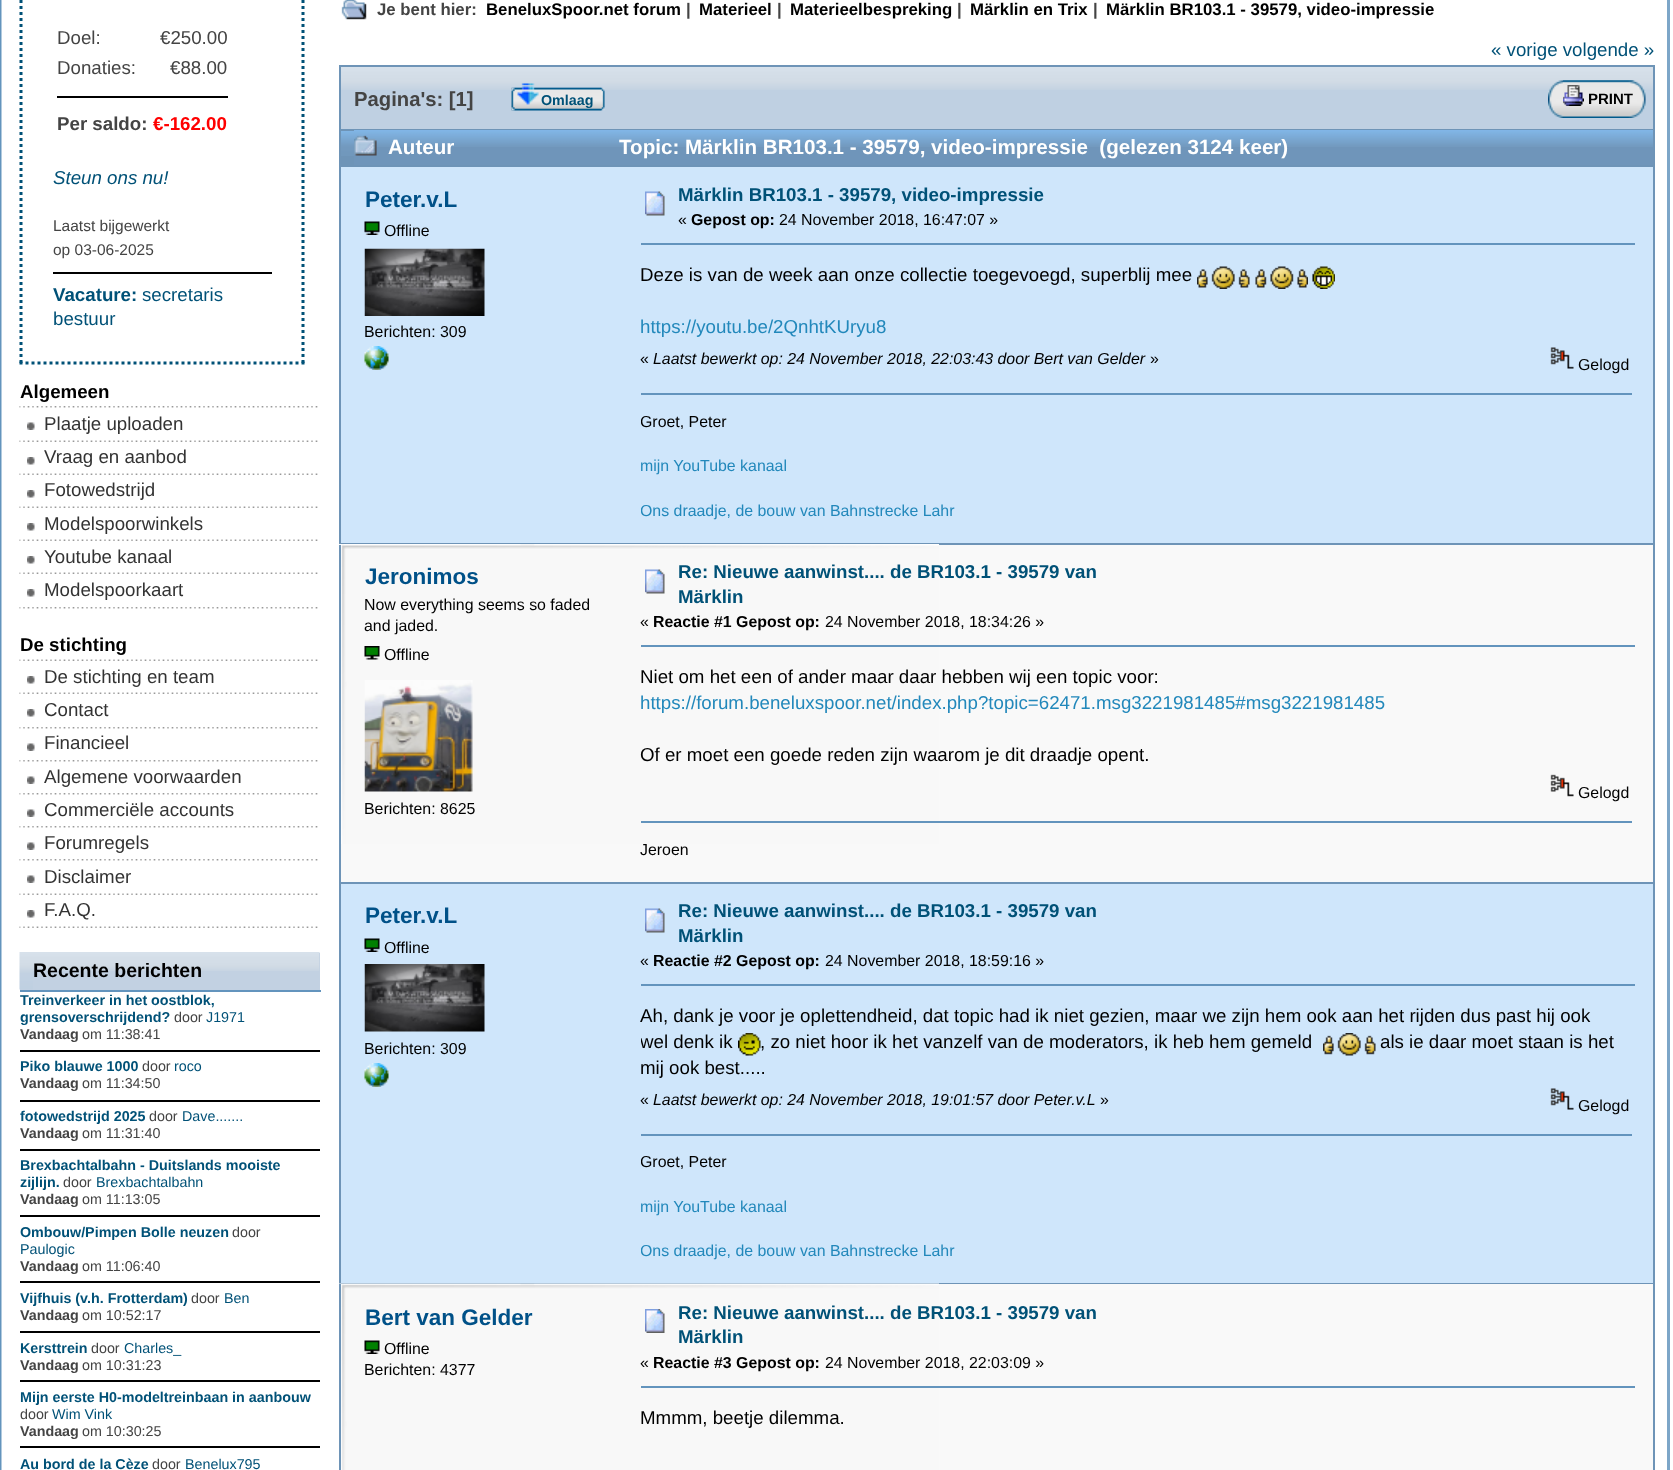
<svg xmlns="http://www.w3.org/2000/svg" width="1673" height="1470">
<style>
.a{font:18.72px Liberation Sans;fill:#444}
.b{font:bold 18.72px Liberation Sans;fill:#444}
.c{font:bold 18.72px Liberation Sans;fill:#f00}
.d{font:italic 18.72px Liberation Sans;fill:#005177}
.e{font:15.5px Liberation Sans;fill:#444}
.f{font:bold 18.72px Liberation Sans;fill:#005177}
.g{font:18.72px Liberation Sans;fill:#005177}
.h{font:bold 18.72px Liberation Sans;fill:#000}
.i{font:18.72px Liberation Sans;fill:#333}
.j{font:bold 19.5px Liberation Sans;fill:#000}
.k{font:bold 14.3px Liberation Sans;fill:#005177}
.l{font:14.3px Liberation Sans;fill:#444}
.m{font:14.3px Liberation Sans;fill:#005177}
.n{font:bold 14.3px Liberation Sans;fill:#444}
.o{font:bold 16.8px Liberation Sans;fill:#444}
.p{font:bold 16.8px Liberation Sans;fill:#000}
.q{font:bold 20.25px Liberation Sans;fill:#444}
.r{font:bold 15px Liberation Sans;fill:#000}
.s{font:bold 20.6px Liberation Sans;fill:#fff}
.t{font:bold 22.5px Liberation Sans;fill:#005188}
.u{font:15.9px Liberation Sans;fill:#000}
.v{font:bold 15.9px Liberation Sans;fill:#000}
.w{font:18.72px Liberation Sans;fill:#000}
.x{font:18.72px Liberation Sans;fill:#28b}
.y{font:italic 15.9px Liberation Sans;fill:#000}
.z{font:15.9px Liberation Sans;fill:#28b}
</style>
<defs>
<clipPath id="clip1"><path d="M641 395h991v132H641z"/></clipPath>
<clipPath id="clip2"><path d="M641 981h1012v107H641z"/></clipPath>
<clipPath id="clip3"><path d="M641 1136h991v130H641z"/></clipPath>
</defs>
<rect width="100%" height="100%" fill="#fff"/>
<image href="1.png" x="0" y="0" width="2" height="1470"/>
<path fill="none" stroke="#005177" stroke-width="3" stroke-dasharray="3 3" d="M303-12v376.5"/>
<path fill="none" stroke="#005177" stroke-width="3" stroke-dasharray="3 3" d="M19.5 363h285"/>
<path fill="none" stroke="#005177" stroke-width="3" stroke-dasharray="3 3" d="M21-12v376.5"/>
<path fill="#000" d="M57 96h171v2H57z"/>
<path fill="#000" d="M53 272h219v2H53z"/>
<image href="2.png" x="19" y="406" width="299" height="2"/>
<image href="3.png" x="27" y="422" width="8" height="8"/>
<image href="4.png" x="19" y="440" width="299" height="2"/>
<image href="5.png" x="27" y="457" width="8" height="8"/>
<image href="4.png" x="19" y="473" width="299" height="2"/>
<image href="5.png" x="27" y="490" width="8" height="8"/>
<image href="4.png" x="19" y="506" width="299" height="2"/>
<image href="5.png" x="27" y="523" width="8" height="8"/>
<image href="4.png" x="19" y="539" width="299" height="2"/>
<image href="5.png" x="27" y="556" width="8" height="8"/>
<image href="4.png" x="19" y="572" width="299" height="2"/>
<image href="5.png" x="27" y="589" width="8" height="8"/>
<image href="2.png" x="19" y="607" width="299" height="2"/>
<image href="4.png" x="19" y="659" width="299" height="2"/>
<image href="5.png" x="27" y="676" width="8" height="8"/>
<image href="4.png" x="19" y="692" width="299" height="2"/>
<image href="5.png" x="27" y="709" width="8" height="8"/>
<image href="2.png" x="19" y="727" width="299" height="2"/>
<image href="3.png" x="27" y="743" width="8" height="8"/>
<image href="2.png" x="19" y="760" width="299" height="2"/>
<image href="3.png" x="27" y="776" width="8" height="8"/>
<image href="2.png" x="19" y="793" width="299" height="2"/>
<image href="3.png" x="27" y="809" width="8" height="8"/>
<image href="2.png" x="19" y="826" width="299" height="2"/>
<image href="3.png" x="27" y="842" width="8" height="8"/>
<image href="2.png" x="19" y="859" width="299" height="2"/>
<image href="3.png" x="27" y="875" width="8" height="8"/>
<image href="4.png" x="19" y="893" width="299" height="2"/>
<image href="5.png" x="27" y="910" width="8" height="8"/>
<image href="4.png" x="19" y="926" width="299" height="2"/>
<path fill="#c2d1e2" d="M20 989h13v1H20z"/>
<image href="6.png" x="19" y="952" width="301" height="38"/>
<path fill="#c2d1e2" d="M33 953h287v37H33z"/>
<image href="7.png" x="33" y="952" width="287" height="19"/>
<path fill="#6394bd" d="M20 990h301v2H20z"/>
<path fill="#000" d="M20 1050h300v2H20z"/>
<path fill="#000" d="M20 1100h300v2H20z"/>
<path fill="#000" d="M20 1149h300v2H20z"/>
<path fill="#000" d="M20 1215h300v2H20z"/>
<path fill="#000" d="M20 1281h300v2H20z"/>
<path fill="#000" d="M20 1331h300v2H20z"/>
<path fill="#000" d="M20 1380h300v2H20z"/>
<path fill="#000" d="M20 1446h300v2H20z"/>
<path fill="#7da6c8" d="M1667 0h3v1470H1667z"/>
<image href="8.png" x="341" y="0" width="26" height="20"/>
<path fill="#bfd0e2" d="M341 90h1312v39H341z"/>
<image href="9.png" x="341" y="67" width="1312" height="23"/>
<path fill="#6e94b7" d="M339 65h1316v2H339z"/>
<path fill="#6e94b7" d="M1653 65h2v64H1653z"/>
<path fill="#6e94b7" d="M339 65h2v64H339z"/>
<image href="10.png" x="511" y="87" width="94" height="24"/>
<image href="11.png" x="511" y="83" width="91" height="28"/>
<image href="12.png" x="1548" y="80" width="86" height="38"/>
<image href="13.png" x="1563" y="80" width="83" height="38"/>
<image href="14.png" x="1563" y="85" width="21" height="21"/>
<path fill="#6e94b7" d="M341 156h13v9H341z"/>
<image href="15.png" x="341" y="131" width="13" height="25"/>
<path fill="none" stroke="#6e94b7" stroke-width="2" d="M340 130h1314v36H340z"/>
<path fill="#6f95ba" d="M354 147h1299v18H354z"/>
<image href="16.png" x="354" y="130" width="1299" height="17"/>
<image href="17.png" x="354" y="135" width="23" height="21"/>
<path fill="#cfe6fb" d="M341 167h1312v376H341z"/>
<path fill="#6e94b7" d="M1653 167h2v16H1653z"/>
<path fill="#6e94b7" d="M339 167h2v16H339z"/>
<path fill="#6e94b7" d="M1653 183h2v378H1653z"/>
<path fill="#6e94b7" d="M339 543h1316v2H339z"/>
<path fill="#6e94b7" d="M339 183h2v362H339z"/>
<image href="18.png" x="364" y="221" width="16" height="14"/>
<image href="19.png" x="364" y="248" width="121" height="68"/>
<image href="20.png" x="364" y="346" width="25" height="24"/>
<image href="21.png" x="645" y="191" width="20" height="25"/>
<path fill="#6394bd" d="M641 243h994v2H641z"/>
<image href="22.png" x="1197" y="266" width="53" height="23"/>
<image href="23.png" x="1255" y="266" width="53" height="23"/>
<image href="24.png" x="1312" y="266" width="23" height="23"/>
<image href="25.png" x="1550" y="347" width="24" height="22"/>
<path fill="#6394bd" d="M641 393h991v2H641z"/>
<path fill="#f9f9f9" d="M341 545h1312v337H341z"/>
<image href="26.png" x="339" y="544" width="600" height="300"/>
<path fill="#6e94b7" d="M339 545h2v16H339z"/>
<path fill="#6e94b7" d="M1653 561h2v339H1653z"/>
<path fill="#6e94b7" d="M339 882h1316v2H339z"/>
<path fill="#6e94b7" d="M339 561h2v339H339z"/>
<image href="27.png" x="364" y="646" width="16" height="14"/>
<image href="28.png" x="364" y="680" width="109" height="112"/>
<image href="29.png" x="645" y="569" width="20" height="25"/>
<path fill="#6394bd" d="M641 645h994v2H641z"/>
<image href="30.png" x="1550" y="774" width="24" height="23"/>
<path fill="#6394bd" d="M641 821h991v2H641z"/>
<path fill="#cfe6fb" d="M341 884h1312v399H341z"/>
<path fill="#6e94b7" d="M1653 900h2v366H1653z"/>
<path fill="#6e94b7" d="M339 900h2v366H339z"/>
<image href="18.png" x="364" y="938" width="16" height="14"/>
<image href="31.png" x="364" y="964" width="121" height="68"/>
<image href="20.png" x="364" y="1063" width="25" height="24"/>
<image href="21.png" x="645" y="908" width="20" height="25"/>
<path fill="#6394bd" d="M641 984h994v2H641z"/>
<image href="32.png" x="738" y="1033" width="23" height="23"/>
<image href="33.png" x="1323" y="1033" width="53" height="23"/>
<image href="25.png" x="1550" y="1088" width="24" height="22"/>
<path fill="#6394bd" d="M641 1134h991v2H641z"/>
<path fill="#6e94b7" d="M1653 1266h2v35H1653z"/>
<path fill="#6e94b7" d="M339 1283h1316v1H339z"/>
<path fill="#6e94b7" d="M339 1266h2v18H339z"/>
<path fill="#f9f9f9" d="M939 1284h714v186H939z"/>
<image href="34.png" x="339" y="1283" width="600" height="187"/>
<path fill="#6e94b7" d="M339 1284h2v17H339z"/>
<path fill="#6e94b7" d="M1653 1301h2v169H1653z"/>
<path fill="#6e94b7" d="M339 1301h2v169H339z"/>
<image href="35.png" x="364" y="1340" width="16" height="14"/>
<image href="36.png" x="645" y="1309" width="20" height="24"/>
<path fill="#6394bd" d="M641 1386h994v2H641z"/>
<text class="a" x="57" y="44">Doel:</text>
<text class="a" x="160" y="44">€250.00</text>
<text class="a" x="57" y="74">Donaties:</text>
<text class="a" x="170" y="74">€88.00</text>
<text class="b" x="57" y="130">Per saldo:</text>
<text class="c" x="153" y="130">€-162.00</text>
<text class="d" x="53" y="184">Steun ons nu!</text>
<text class="e" x="53" y="231">Laatst bijgewerkt</text>
<text class="e" x="53" y="255">op 03-06-2025</text>
<text class="f" x="53" y="301">Vacature:</text>
<text class="g" x="142" y="301">secretaris</text>
<text class="g" x="53" y="325">bestuur</text>
<text class="h" x="20" y="398">Algemeen</text>
<text class="i" x="44" y="430">Plaatje uploaden</text>
<text class="i" x="44" y="463">Vraag en aanbod</text>
<text class="i" x="44" y="496">Fotowedstrijd</text>
<text class="i" x="44" y="530">Modelspoorwinkels</text>
<text class="i" x="44" y="563">Youtube kanaal</text>
<text class="i" x="44" y="596">Modelspoorkaart</text>
<text class="h" x="20" y="651">De stichting</text>
<text class="i" x="44" y="683">De stichting en team</text>
<text class="i" x="44" y="716">Contact</text>
<text class="i" x="44" y="749">Financieel</text>
<text class="i" x="44" y="783">Algemene voorwaarden</text>
<text class="i" x="44" y="816">Commerciële accounts</text>
<text class="i" x="44" y="849">Forumregels</text>
<text class="i" x="44" y="883">Disclaimer</text>
<text class="i" x="44" y="916">F.A.Q.</text>
<text class="j" x="33" y="977">Recente berichten</text>
<text class="k" x="20" y="1005">Treinverkeer in het oostblok,</text>
<text class="k" x="20" y="1022">grensoverschrijdend?</text>
<text class="l" x="174" y="1022">door</text>
<text class="m" x="206" y="1022">J1971</text>
<text class="n" x="20" y="1039">Vandaag</text>
<text class="l" x="82" y="1039">om 11:38:41</text>
<text class="k" x="20" y="1071">Piko blauwe 1000</text>
<text class="l" x="142" y="1071">door</text>
<text class="m" x="174" y="1071">roco</text>
<text class="n" x="20" y="1088">Vandaag</text>
<text class="l" x="82" y="1088">om 11:34:50</text>
<text class="k" x="20" y="1121">fotowedstrijd 2025</text>
<text class="l" x="149" y="1121">door</text>
<text class="m" x="182" y="1121">Dave.......</text>
<text class="n" x="20" y="1138">Vandaag</text>
<text class="l" x="82" y="1138">om 11:31:40</text>
<text class="k" x="20" y="1170">Brexbachtalbahn - Duitslands mooiste</text>
<text class="k" x="20" y="1187">zijlijn.</text>
<text class="l" x="63" y="1187">door</text>
<text class="m" x="96" y="1187">Brexbachtalbahn</text>
<text class="n" x="20" y="1204">Vandaag</text>
<text class="l" x="82" y="1204">om 11:13:05</text>
<text class="k" x="20" y="1237">Ombouw/Pimpen Bolle neuzen</text>
<text class="l" x="232" y="1237">door</text>
<text class="m" x="20" y="1254">Paulogic</text>
<text class="n" x="20" y="1271">Vandaag</text>
<text class="l" x="82" y="1271">om 11:06:40</text>
<text class="k" x="20" y="1303">Vijfhuis (v.h. Frotterdam)</text>
<text class="l" x="191" y="1303">door</text>
<text class="m" x="224" y="1303">Ben</text>
<text class="n" x="20" y="1320">Vandaag</text>
<text class="l" x="82" y="1320">om 10:52:17</text>
<text class="k" x="20" y="1353">Kersttrein</text>
<text class="l" x="91" y="1353">door</text>
<text class="m" x="124" y="1353">Charles_</text>
<text class="n" x="20" y="1370">Vandaag</text>
<text class="l" x="82" y="1370">om 10:31:23</text>
<text class="k" x="20" y="1402">Mijn eerste H0-modeltreinbaan in aanbouw</text>
<text class="l" x="20" y="1419">door</text>
<text class="m" x="52" y="1419">Wim Vink</text>
<text class="n" x="20" y="1436">Vandaag</text>
<text class="l" x="82" y="1436">om 10:30:25</text>
<text class="k" x="20" y="1469">Au bord de la Cèze</text>
<text class="l" x="152" y="1469">door</text>
<text class="m" x="185" y="1469">Benelux795</text>
<text class="o" x="377" y="15">Je bent hier:</text>
<text class="p" x="486" y="15">BeneluxSpoor.net forum</text>
<text class="o" x="686" y="15">|</text>
<text class="p" x="699" y="15">Materieel</text>
<text class="o" x="777" y="15">|</text>
<text class="p" x="790" y="15">Materieelbespreking</text>
<text class="o" x="957" y="15">|</text>
<text class="p" x="970" y="15">Märklin en Trix</text>
<text class="o" x="1093" y="15">|</text>
<text class="p" x="1106" y="15">Märklin BR103.1 - 39579, video-impressie</text>
<text class="g" x="1491" y="56">« vorige volgende »</text>
<text class="q" x="354" y="106">Pagina's: [1]</text>
<text class="k" x="541" y="105">Omlaag</text>
<text class="r" x="1588" y="104">PRINT</text>
<text class="s" x="388" y="154">Auteur</text>
<text class="s" xml:space="preserve" x="619" y="154">Topic: Märklin BR103.1 - 39579, video-impressie  (gelezen 3124 keer)</text>
<text class="t" x="365" y="207">Peter.v.L</text>
<text class="u" x="384" y="236">Offline</text>
<text class="u" x="364" y="337">Berichten: 309</text>
<text class="f" x="678" y="201">Märklin BR103.1 - 39579, video-impressie</text>
<text class="u" x="678" y="225">«</text>
<text class="v" x="691" y="225">Gepost op:</text>
<text class="u" x="779" y="225">24 November 2018, 16:47:07 »</text>
<text class="w" x="640" y="281">Deze is van de week aan onze collectie toegevoegd, superblij mee</text>
<text class="x" x="640" y="333">https://youtu.be/2QnhtKUryu8</text>
<text class="u" x="640" y="364">«</text>
<text class="y" x="653" y="364">Laatst bewerkt op: 24 November 2018, 22:03:43 door Bert van Gelder</text>
<text class="u" x="1150" y="364">»</text>
<text class="u" x="1578" y="370">Gelogd</text>
<g clip-path="url(#clip1)">
<text class="u" x="640" y="427">Groet, Peter</text>
</g>
<text class="z" x="640" y="471">mijn YouTube kanaal</text>
<g clip-path="url(#clip1)">
<text class="z" x="640" y="516">Ons draadje, de bouw van Bahnstrecke Lahr</text>
</g>
<text class="t" x="365" y="584">Jeronimos</text>
<text class="u" x="364" y="610">Now everything seems so faded</text>
<text class="u" x="364" y="631">and jaded.</text>
<text class="u" x="384" y="660">Offline</text>
<text class="u" x="364" y="814">Berichten: 8625</text>
<text class="f" x="678" y="578">Re: Nieuwe aanwinst.... de BR103.1 - 39579 van</text>
<text class="f" x="678" y="603">Märklin</text>
<text class="u" x="640" y="627">«</text>
<text class="v" x="653" y="627">Reactie #1 Gepost op:</text>
<text class="u" x="825" y="627">24 November 2018, 18:34:26 »</text>
<text class="w" x="640" y="683">Niet om het een of ander maar daar hebben wij een topic voor:</text>
<text class="x" x="640" y="709">https://forum.beneluxspoor.net/index.php?topic=62471.msg3221981485#msg3221981485</text>
<text class="w" x="640" y="761">Of er moet een goede reden zijn waarom je dit draadje opent.</text>
<text class="u" x="1578" y="798">Gelogd</text>
<text class="u" x="640" y="855">Jeroen</text>
<text class="t" x="365" y="923">Peter.v.L</text>
<text class="u" x="384" y="953">Offline</text>
<text class="u" x="364" y="1054">Berichten: 309</text>
<text class="f" x="678" y="917">Re: Nieuwe aanwinst.... de BR103.1 - 39579 van</text>
<text class="f" x="678" y="942">Märklin</text>
<text class="u" x="640" y="966">«</text>
<text class="v" x="653" y="966">Reactie #2 Gepost op:</text>
<text class="u" x="825" y="966">24 November 2018, 18:59:16 »</text>
<text class="w" x="640" y="1022">Ah, dank je voor je oplettendheid, dat topic had ik niet gezien, maar we zijn hem ook aan het rijden dus past hij ook</text>
<g clip-path="url(#clip2)">
<text class="w" x="640" y="1048">wel denk ik</text>
</g>
<text class="w" x="760" y="1048">, zo niet hoor ik het vanzelf van de moderators, ik heb hem gemeld</text>
<text class="w" x="1380" y="1048">als ie daar moet staan is het</text>
<text class="w" x="640" y="1074">mij ook best.....</text>
<text class="u" x="640" y="1105">«</text>
<text class="y" x="653" y="1105">Laatst bewerkt op: 24 November 2018, 19:01:57 door Peter.v.L</text>
<text class="u" x="1100" y="1105">»</text>
<text class="u" x="1578" y="1111">Gelogd</text>
<g clip-path="url(#clip3)">
<text class="u" x="640" y="1167">Groet, Peter</text>
</g>
<text class="z" x="640" y="1212">mijn YouTube kanaal</text>
<g clip-path="url(#clip3)">
<text class="z" x="640" y="1256">Ons draadje, de bouw van Bahnstrecke Lahr</text>
</g>
<text class="t" x="365" y="1325">Bert van Gelder</text>
<text class="u" x="384" y="1354">Offline</text>
<text class="u" x="364" y="1375">Berichten: 4377</text>
<text class="f" x="678" y="1319">Re: Nieuwe aanwinst.... de BR103.1 - 39579 van</text>
<text class="f" x="678" y="1343">Märklin</text>
<text class="u" x="640" y="1368">«</text>
<text class="v" x="653" y="1368">Reactie #3 Gepost op:</text>
<text class="u" x="825" y="1368">24 November 2018, 22:03:09 »</text>
<text class="w" x="640" y="1424">Mmmm, beetje dilemma.</text>
</svg>
